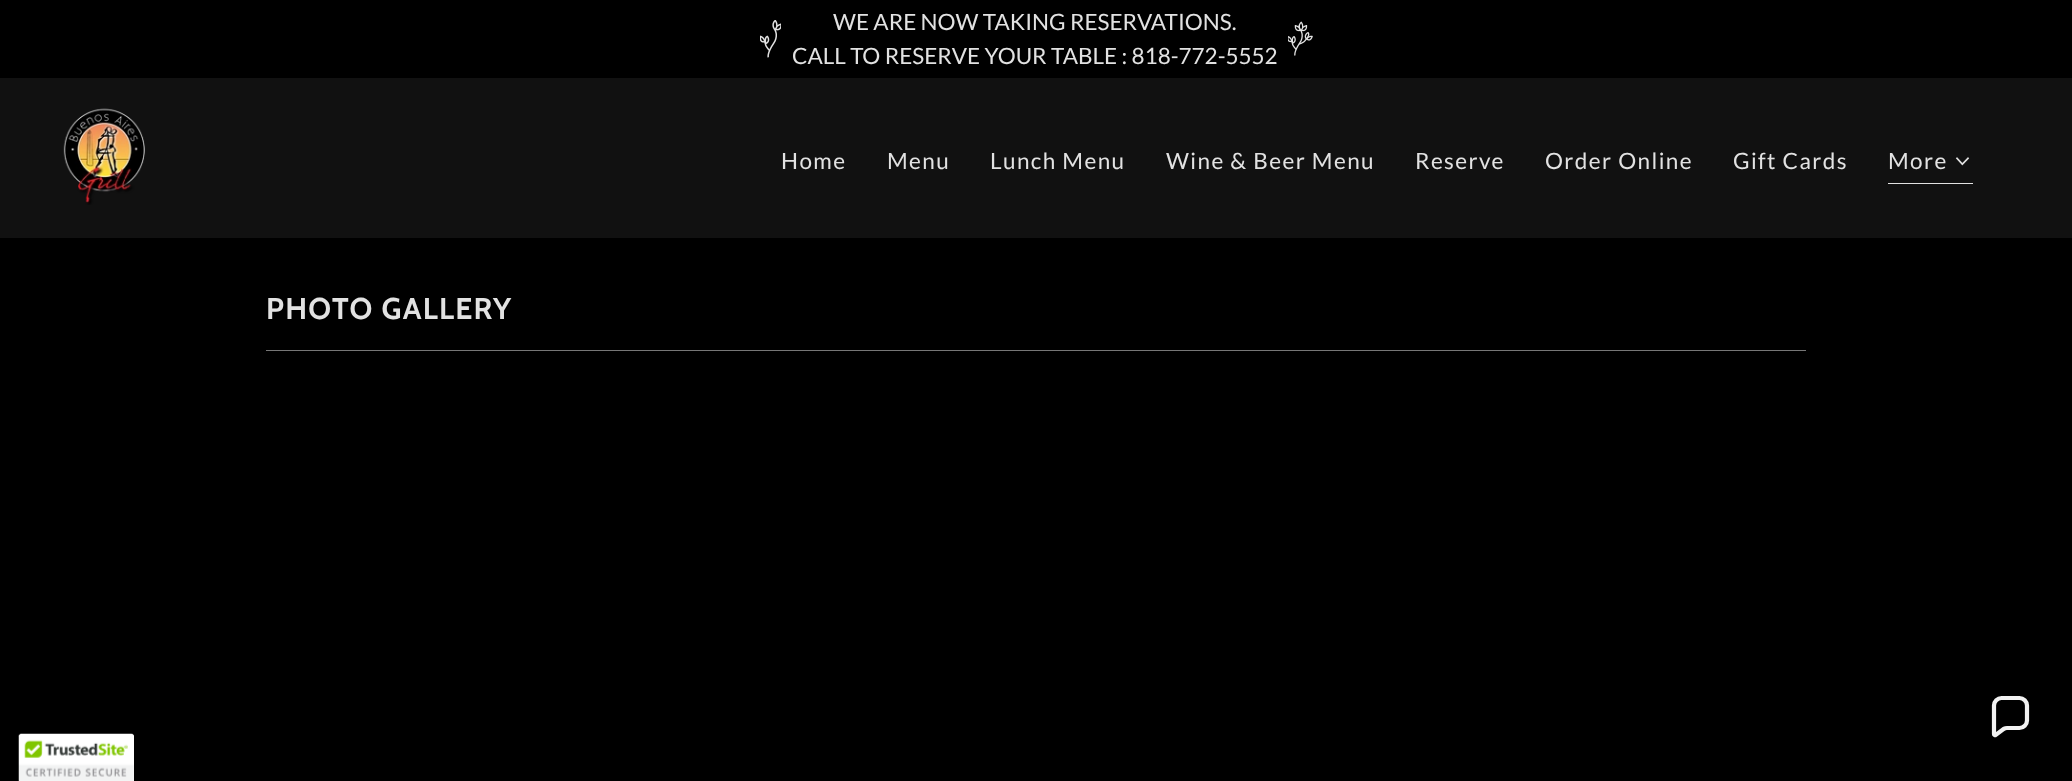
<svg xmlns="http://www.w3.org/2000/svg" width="2072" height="781">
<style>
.a{font:22.5px Lato;fill:#e2e2e2}
.b{font:22.5px Lato;letter-spacing:1.4px;fill:#e2e2e2}
.c{font:bold 30px Cabin;letter-spacing:1.25px;fill:#e2e2e2}
</style>
<rect width="100%" height="100%" fill="#000"/>
<image href="1.png" x="760" y="20" width="21" height="38"/>
<image href="2.png" x="1288" y="21" width="25" height="35"/>
<path fill="#111" d="M0 78h2072v160H0z"/>
<image href="3.png" x="63" y="108" width="82" height="97"/>
<path fill="#e2e2e2" d="M1888 183h85v1H1888z"/>
<image href="4.png" x="1955" y="157" width="15" height="9"/>
<path fill="#777" d="M266 350h1540v1H266z"/>
<path fill="none" stroke="#f2f2f2" stroke-width="4.2" d="M2019.5 698h-18c-4 0-7.5 3.5-7.5 7.5v28.5c0 1 1 1.5 1.5 1l8-6c1-.5 2.5-1 3.5-1h12.5c4 0 7.5-3.5 7.5-7.5v-15c0-4-3.5-7.5-7.5-7.5z"/>
<path fill="#fff" d="M21.5 734h110c1.5 0 2.5 1 2.5 2.5v44.5h-115v-44.5c0-1.5 1-2.5 2.5-2.5z"/>
<image href="5.png" x="18" y="733" width="116" height="48"/>
<text class="a" x="833" y="30">WE ARE NOW TAKING RESERVATIONS.</text>
<text class="a" x="792" y="64">CALL TO RESERVE YOUR TABLE : 818-772-5552</text>
<text class="b" x="781" y="169">Home</text>
<text class="b" x="887" y="169">Menu</text>
<text class="b" x="990" y="169">Lunch Menu</text>
<text class="b" x="1166" y="169">Wine &amp; Beer Menu</text>
<text class="b" x="1415" y="169">Reserve</text>
<text class="b" x="1545" y="169">Order Online</text>
<text class="b" x="1733" y="169">Gift Cards</text>
<text class="b" x="1888" y="169">More</text>
<text class="c" x="266" y="319">PHOTO GALLERY</text>
</svg>
